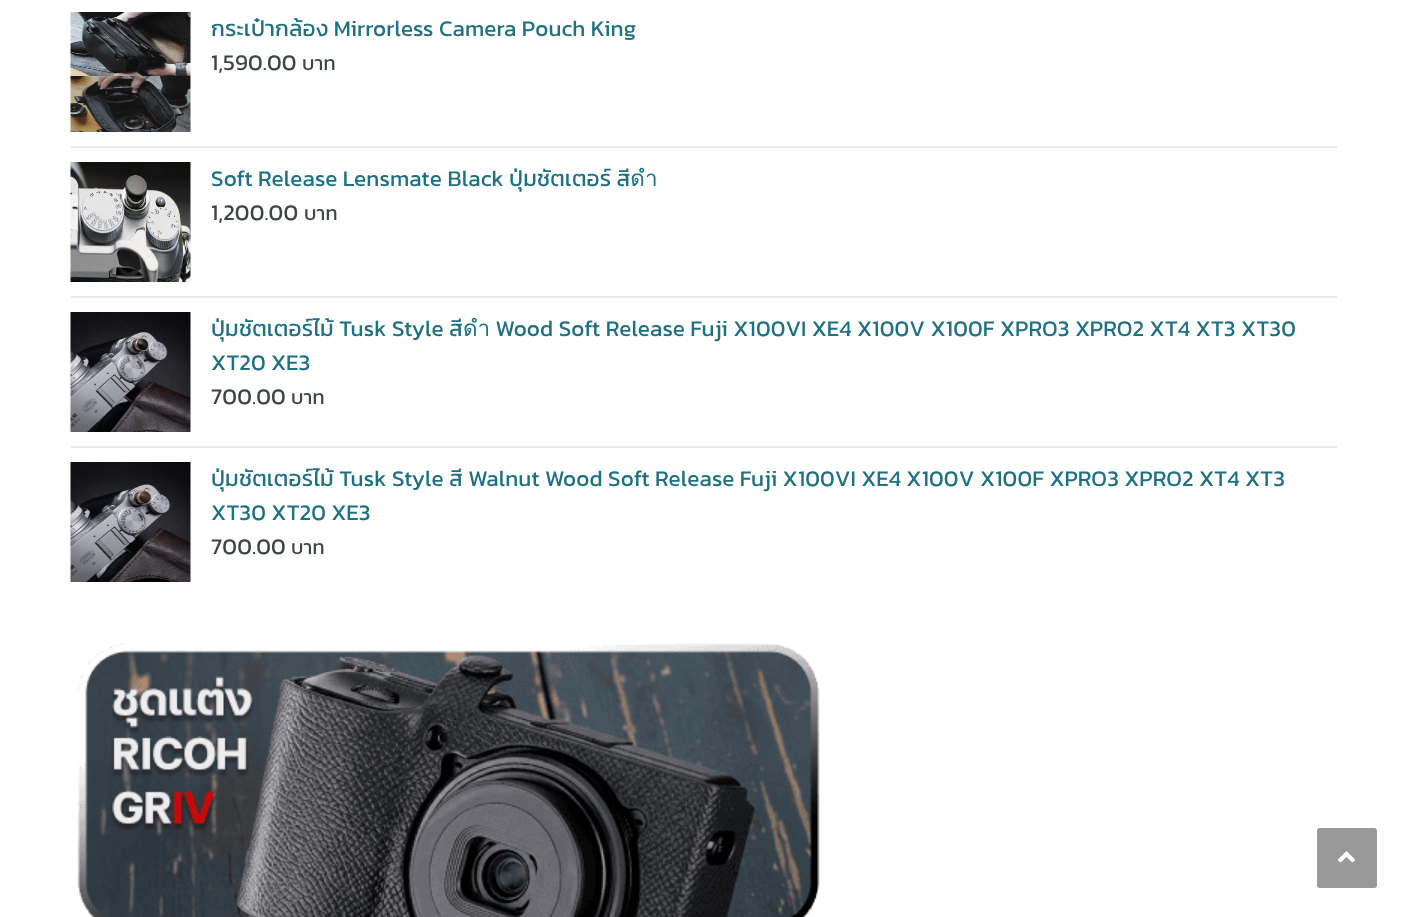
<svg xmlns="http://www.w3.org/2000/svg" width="1407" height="917">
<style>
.a{font:22.5px Kanit;letter-spacing:0.15px;fill:#1e7084}
.b{font:22.5px Kanit;letter-spacing:0.15px;fill:#3e4540}
.c{font:20px Kanit;letter-spacing:0.15px;fill:#3e4540}
</style>
<rect width="100%" height="100%" fill="#fff"/>
<path fill="#eaeaea" d="M71 146h1266v2H71z"/>
<image href="1.png" x="70" y="12" width="121" height="120"/>
<path fill="#eaeaea" d="M71 296h1266v2H71z"/>
<image href="2.png" x="70" y="162" width="121" height="120"/>
<path fill="#eaeaea" d="M71 446h1266v2H71z"/>
<image href="3.png" x="70" y="312" width="121" height="120"/>
<image href="4.png" x="70" y="462" width="121" height="120"/>
<image href="5.png" x="77" y="643" width="743" height="274"/>
<rect fill="#999" x="1317" y="828" width="60" height="60" rx="3"/>
<image href="6.png" x="1338" y="851" width="17" height="12"/>
<text class="a" x="211" y="36">กระเป๋ากล้อง Mirrorless Camera Pouch King</text>
<text class="b" x="211" y="70">1,590.00</text>
<text class="c" x="302" y="70">บาท</text>
<text class="a" x="211" y="186">Soft Release Lensmate Black ปุ่มชัตเตอร์ สีดำ</text>
<text class="b" x="211" y="220">1,200.00</text>
<text class="c" x="304" y="220">บาท</text>
<text class="a" x="211" y="336">ปุ่มชัตเตอร์ไม้ Tusk Style สีดำ Wood Soft Release Fuji X100VI XE4 X100V X100F XPRO3 XPRO2 XT4 XT3 XT30</text>
<text class="a" x="211" y="370">XT20 XE3</text>
<text class="b" x="211" y="404">700.00</text>
<text class="c" x="291" y="404">บาท</text>
<text class="a" x="211" y="486">ปุ่มชัตเตอร์ไม้ Tusk Style สี Walnut Wood Soft Release Fuji X100VI XE4 X100V X100F XPRO3 XPRO2 XT4 XT3</text>
<text class="a" x="211" y="520">XT30 XT20 XE3</text>
<text class="b" x="211" y="554">700.00</text>
<text class="c" x="291" y="554">บาท</text>
</svg>
